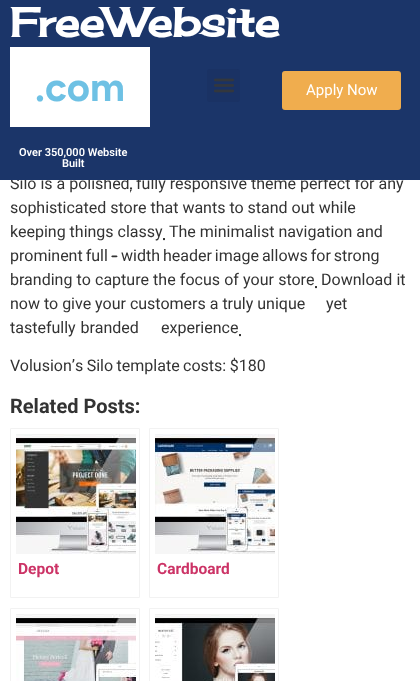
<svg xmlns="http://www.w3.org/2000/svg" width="420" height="681">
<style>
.a{font:16px Roboto;fill:#333}
.b{font:16px Digital Numbers;fill:#333}
.c{font:15px Roboto;fill:#fff}
.d{font:600 11px Roboto;fill:#fff}
.e{font:bold 40px Figtree;fill:#6ec1e4}
.f{font:bold 40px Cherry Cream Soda;fill:#fff}
.g{font:bold 20px Roboto;fill:#333}
.h{font:bold 15.5px Roboto;fill:#c36}
</style>
<rect width="100%" height="100%" fill="#fff"/>
<path fill="none" stroke="#f2f2f2" d="M10.5 428.5h129v169H10.5z"/>
<image href="2.png" x="16" y="434" width="120" height="120"/>
<path fill="none" stroke="#f2f2f2" d="M149.5 428.5h129v169H149.5z"/>
<image href="3.png" x="155" y="434" width="120" height="120"/>
<path fill="none" stroke="#f2f2f2" d="M10.5 608.5h129v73H10.5z"/>
<image href="4.png" x="16" y="614" width="120" height="67"/>
<path fill="none" stroke="#f2f2f2" d="M149.5 608.5h129v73H149.5z"/>
<image href="5.png" x="155" y="614" width="120" height="67"/>
<text class="a" x="10" y="189">Silo is a polished</text>
<text class="b" x="130" y="189">,</text>
<text class="a" x="136" y="189">fully responsive theme perfect for any</text>
<path fill="#1b3569" d="M0 0h420v180H0z"/>
<rect fill="#f0ad4e" x="282" y="71" width="119" height="39" rx="3"/>
<text class="c" x="306" y="95">Apply Now</text>
<rect fill="#1a3264" x="207" y="69" width="33" height="33" rx="3"/>
<image href="1.png" x="214" y="78" width="20" height="15"/>
<text class="d" x="62" y="167">Built</text>
<text class="d" x="19" y="156">Over 350,000 Website</text>
<path fill="#fff" d="M10 47h140v80H10z"/>
<text class="e" x="35" y="101">.com</text>
<text class="f" x="10" y="37">FreeWebsite</text>
<text class="a" x="10" y="213">sophisticated store that wants to stand out while</text>
<text class="a" x="10" y="237">keeping things classy</text>
<text class="b" x="163" y="237">.</text>
<text class="a" x="169" y="237">The minimalist navigation and</text>
<text class="a" x="10" y="261" word-spacing="-1">prominent full</text>
<text class="b" x="108" y="261">-</text>
<text class="a" x="121" y="261" word-spacing="-1">width header image allows for strong</text>
<text class="a" x="10" y="285" word-spacing="0.25">branding to capture the focus of your store</text>
<text class="a" x="321" y="285" word-spacing="0.25">Download it</text>
<text class="b" x="315" y="285">.</text>
<text class="a" x="10" y="309">now to give your customers a truly unique</text>
<text class="a" x="326" y="309">yet</text>
<text class="a" x="10" y="333" word-spacing="1">tastefully branded</text>
<text class="a" x="161" y="333">experience</text>
<text class="b" x="239" y="333">.</text>
<text class="a" x="10" y="371" word-spacing="-0.5">Volusion’s Silo template costs: $180</text>
<text class="g" x="10" y="413">Related Posts:</text>
<text class="h" x="18" y="574">Depot</text>
<text class="h" x="157" y="574">Cardboard</text>
</svg>
